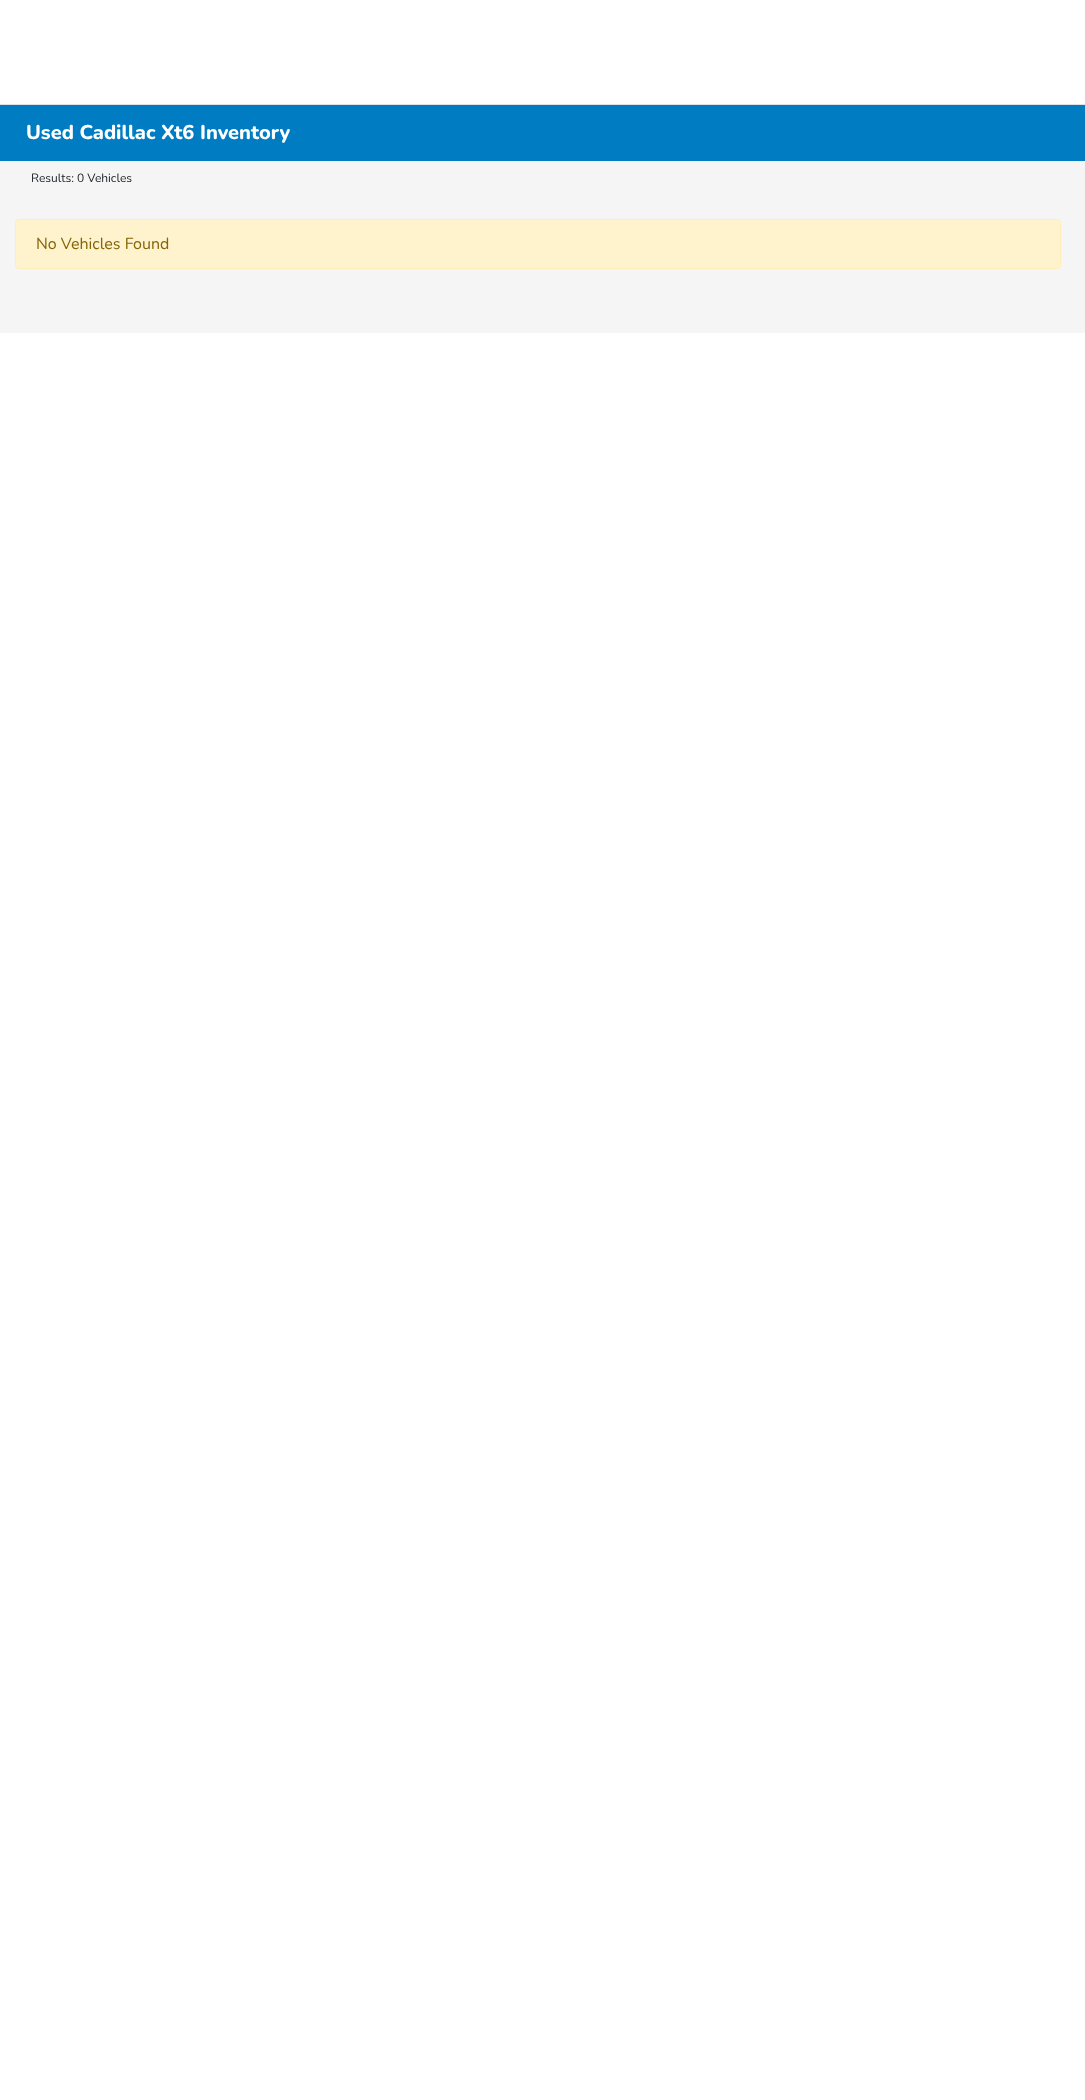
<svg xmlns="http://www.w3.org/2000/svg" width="1085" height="2100">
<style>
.a{font:800 20px Nunito;fill:#fff}
.b{font:12px Nunito;fill:#212529}
.c{font:16px Nunito;fill:#856404}
</style>
<rect width="100%" height="100%" fill="#fff"/>
<path fill="#f5f5f5" d="M0 161h1085v172H0z"/>
<path fill="#007cc3" d="M0 105h1085v56H0z"/>
<path fill="#dee2e6" d="M0 104h1085v1H0z"/>
<rect fill="#fff3cd" stroke="#ffeeba" x="15.5" y="219.5" width="1045" height="49" rx="3.5"/>
<text class="a" x="26" y="139">Used Cadillac Xt6 Inventory</text>
<text class="b" x="31" y="182">Results: 0 Vehicles</text>
<text class="c" x="36" y="249">No Vehicles Found</text>
</svg>
